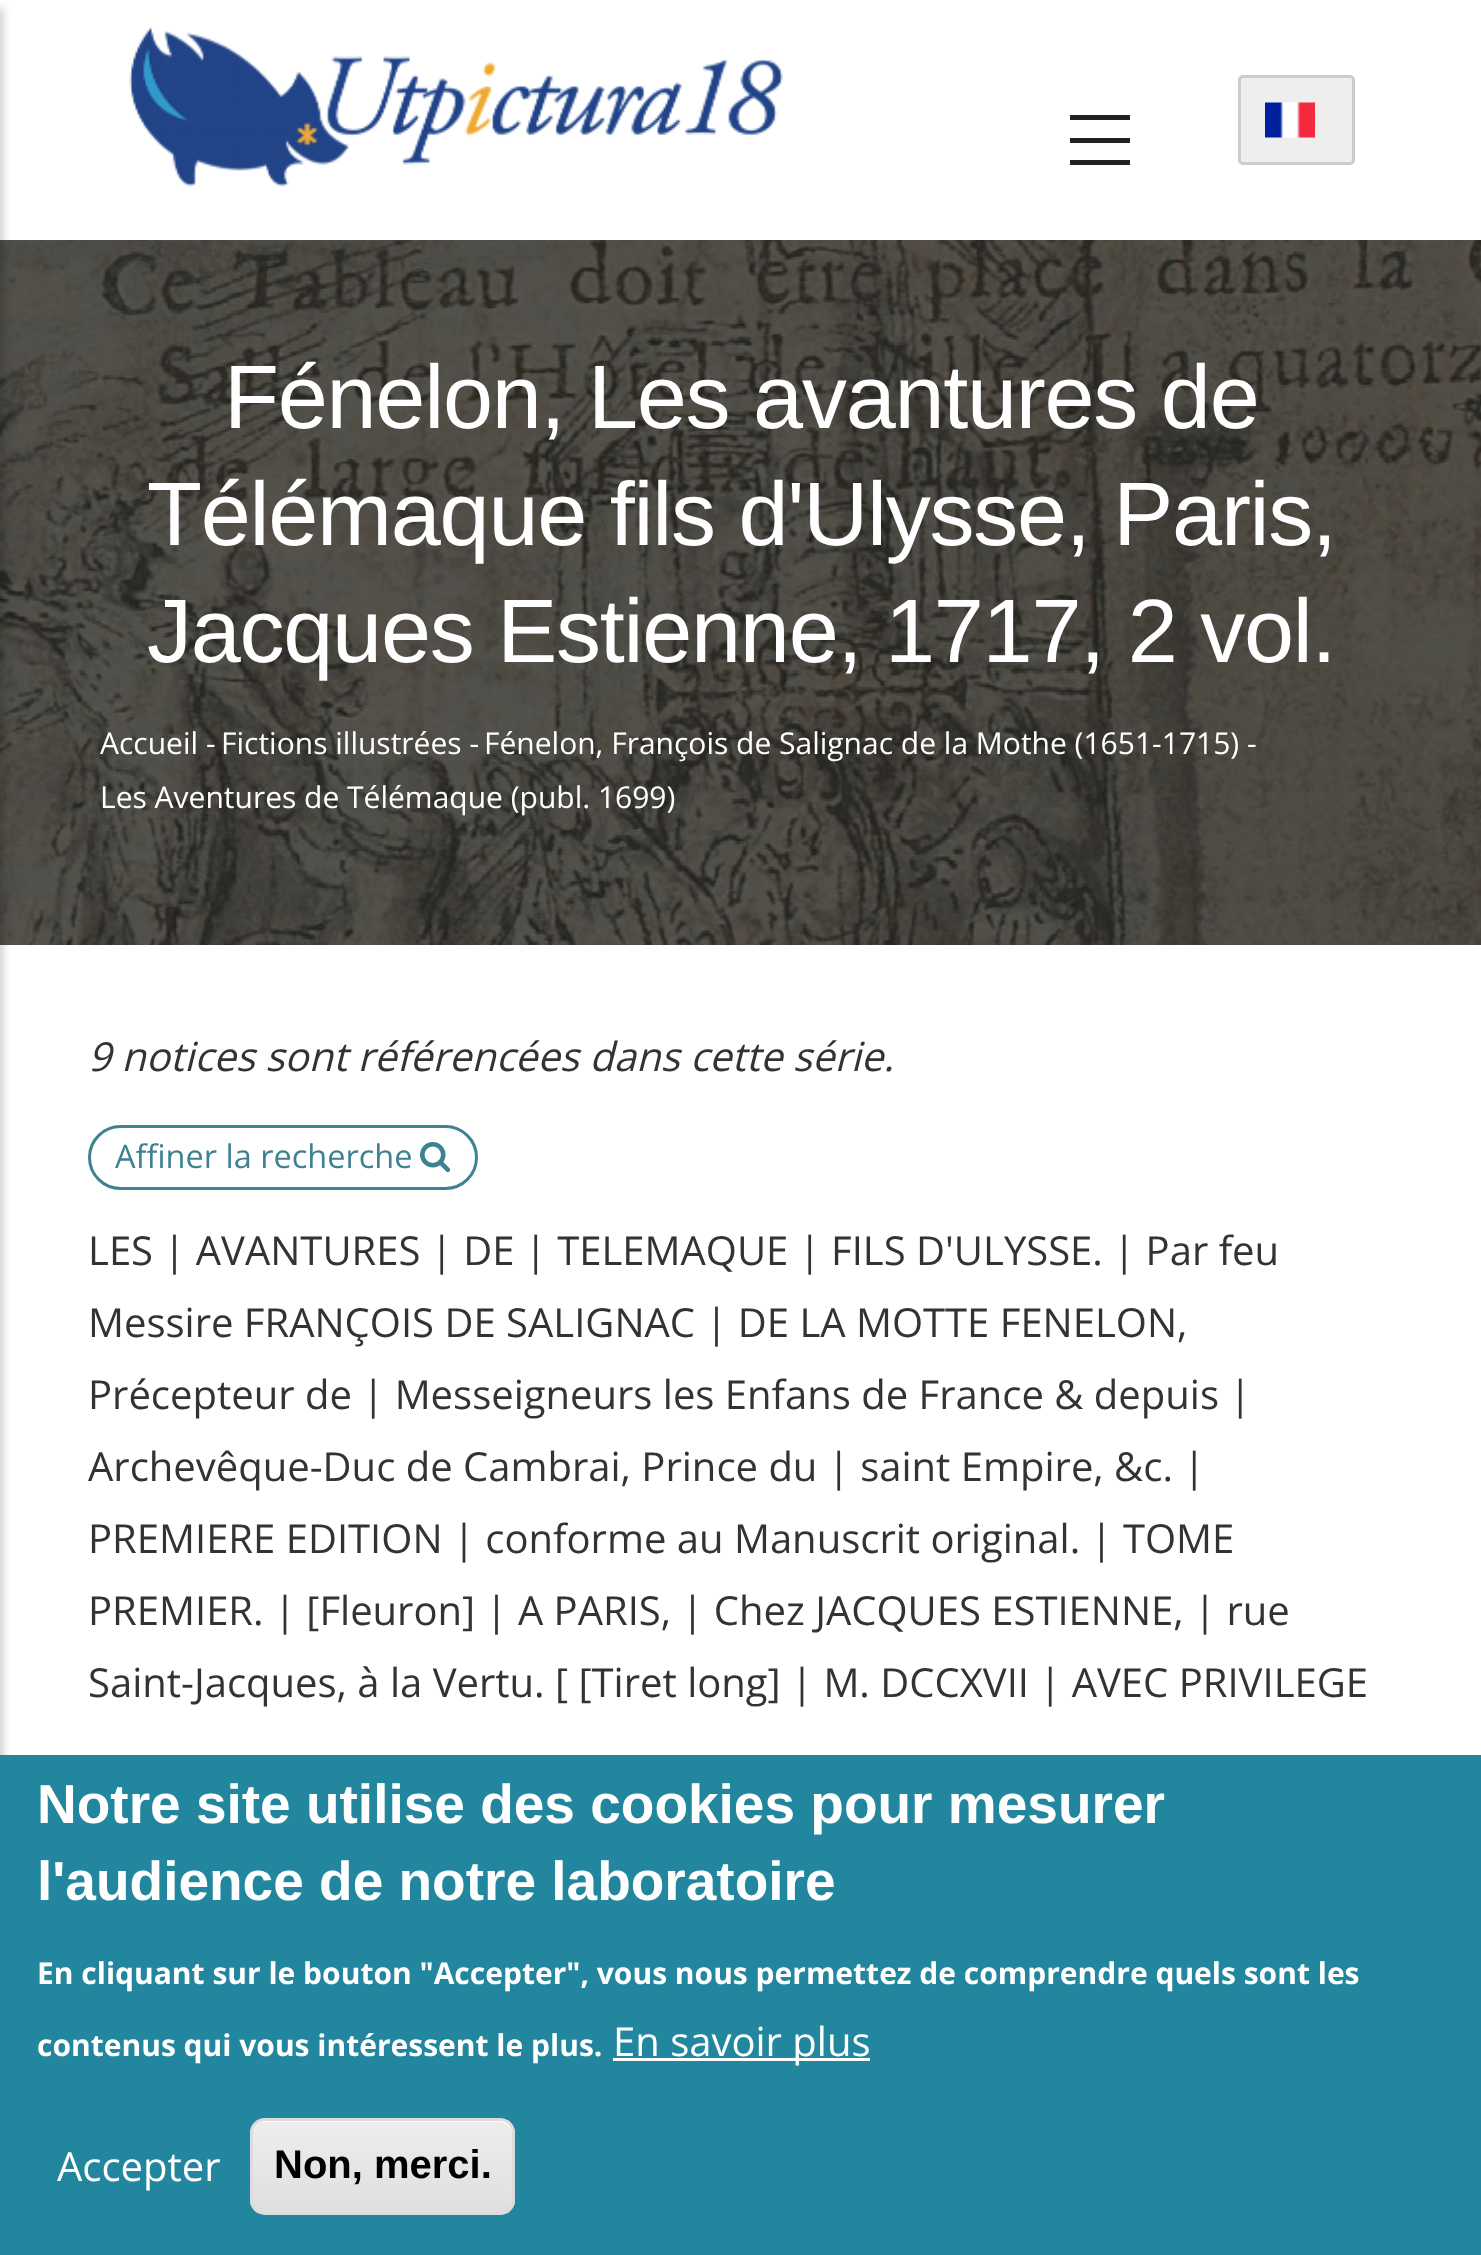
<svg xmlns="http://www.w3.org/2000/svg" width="1481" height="2255">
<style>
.a{font:90px Liberation Sans;letter-spacing:-1.25px;fill:#fff}
.b{font:30px Open Sans;fill:#fff}
.c{font:italic 40px Open Sans;fill:#333}
.d{font:32.5px Open Sans;fill:#3d8291}
.e{font:40px Open Sans;fill:#333}
.f{font:bold 55px Liberation Sans;fill:#fff}
.g{font:bold 30px Open Sans;fill:#fff}
.h{font:40px Open Sans;fill:#fff}
.i{font:bold 40px Liberation Sans;fill:#000}
</style>
<defs>
<clipPath id="clip1"><rect x="250" y="2118" width="265" height="97" rx="15"/></clipPath>
<linearGradient id="g1" gradientUnits="userSpaceOnUse" x1="383" y1="2120" x2="383" y2="2213"><stop offset="0.05" stop-color="#ededed"/><stop offset="1" stop-color="#dfdfdf"/></linearGradient>
</defs>
<rect width="100%" height="100%" fill="#fff"/>
<image href="3.png" x="0" y="240" width="1481" height="705"/>
<path fill="#00000033" filter="blur(5px)" d="M-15 8h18v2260H-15z"/>
<path fill="#222" d="M1070 115h60v5H1070z"/>
<path fill="#222" d="M1070 138h60v5H1070z"/>
<path fill="#222" d="M1070 160h60v5H1070z"/>
<image href="1.png" x="129" y="26" width="654" height="161"/>
<rect fill="#eee" stroke="#ccc" stroke-width="3" x="1239.5" y="76.5" width="114" height="87" rx="3.5"/>
<image href="2.png" x="1265" y="102" width="50" height="36"/>
<rect fill="none" stroke="#3d8291" stroke-width="3" x="89.5" y="1126.5" width="387" height="62" rx="31"/>
<image href="4.png" x="420" y="1142" width="31" height="31"/>
<path fill="#22879e" d="M0 1755h1481v500H0z"/>
<path fill="#fff" d="M613 2058h257v3H613z"/>
<g clip-path="url(#clip1)">
<path fill="url(#g1)" d="M250 2120h265v93H250z"/>
</g>
<path fill="#fff" d="M265 2122h235c7 0 12 6 12 13v67l-1 4c1-1 2-4 2-6v-67c0-7-6-13-13-13h-234c-6 0-10 4-12 9c2-4 6-7 11-7z"/>
<rect fill="none" stroke="#dcdcdc" stroke-width="3" x="251.5" y="2119.5" width="262" height="94" rx="13.5"/>
<text class="a" x="224" y="428">Fénelon, Les avantures de</text>
<text class="a" x="147" y="545">Télémaque fils d'Ulysse, Paris,</text>
<text class="a" x="147" y="662">Jacques Estienne, 1717, 2 vol.</text>
<text class="b" x="100" y="754">Accueil -</text>
<text class="b" x="221" y="754">Fictions illustrées -</text>
<text class="b" x="484" y="754">Fénelon, François de Salignac de la Mothe (1651-1715) -</text>
<text class="b" x="100" y="808">Les Aventures de Télémaque (publ. 1699)</text>
<text class="c" x="88" y="1071">9 notices sont référencées dans cette série.</text>
<text class="d" x="115" y="1168">Affiner la recherche</text>
<text class="e" x="88" y="1265">LES | AVANTURES | DE | TELEMAQUE | FILS D'ULYSSE. | Par feu</text>
<text class="e" x="88" y="1337">Messire FRANÇOIS DE SALIGNAC | DE LA MOTTE FENELON,</text>
<text class="e" x="88" y="1409">Précepteur de | Messeigneurs les Enfans de France &amp; depuis |</text>
<text class="e" x="88" y="1481">Archevêque-Duc de Cambrai, Prince du | saint Empire, &amp;c. |</text>
<text class="e" x="88" y="1553">PREMIERE EDITION | conforme au Manuscrit original. | TOME</text>
<text class="e" x="88" y="1625">PREMIER. | [Fleuron] | A PARIS, | Chez JACQUES ESTIENNE, | rue</text>
<text class="e" x="88" y="1697">Saint-Jacques, à la Vertu. [ [Tiret long] | M. DCCXVII | AVEC PRIVILEGE</text>
<text class="f" x="37" y="1823">Notre site utilise des cookies pour mesurer</text>
<text class="f" x="37" y="1900">l'audience de notre laboratoire</text>
<text class="g" x="37" y="1984">En cliquant sur le bouton "Accepter", vous nous permettez de comprendre quels sont les</text>
<text class="g" x="37" y="2056">contenus qui vous intéressent le plus.</text>
<text class="h" x="613" y="2056">En savoir plus</text>
<text class="h" x="57" y="2181">Accepter</text>
<text class="i" x="274" y="2178">Non, merci.</text>
</svg>
